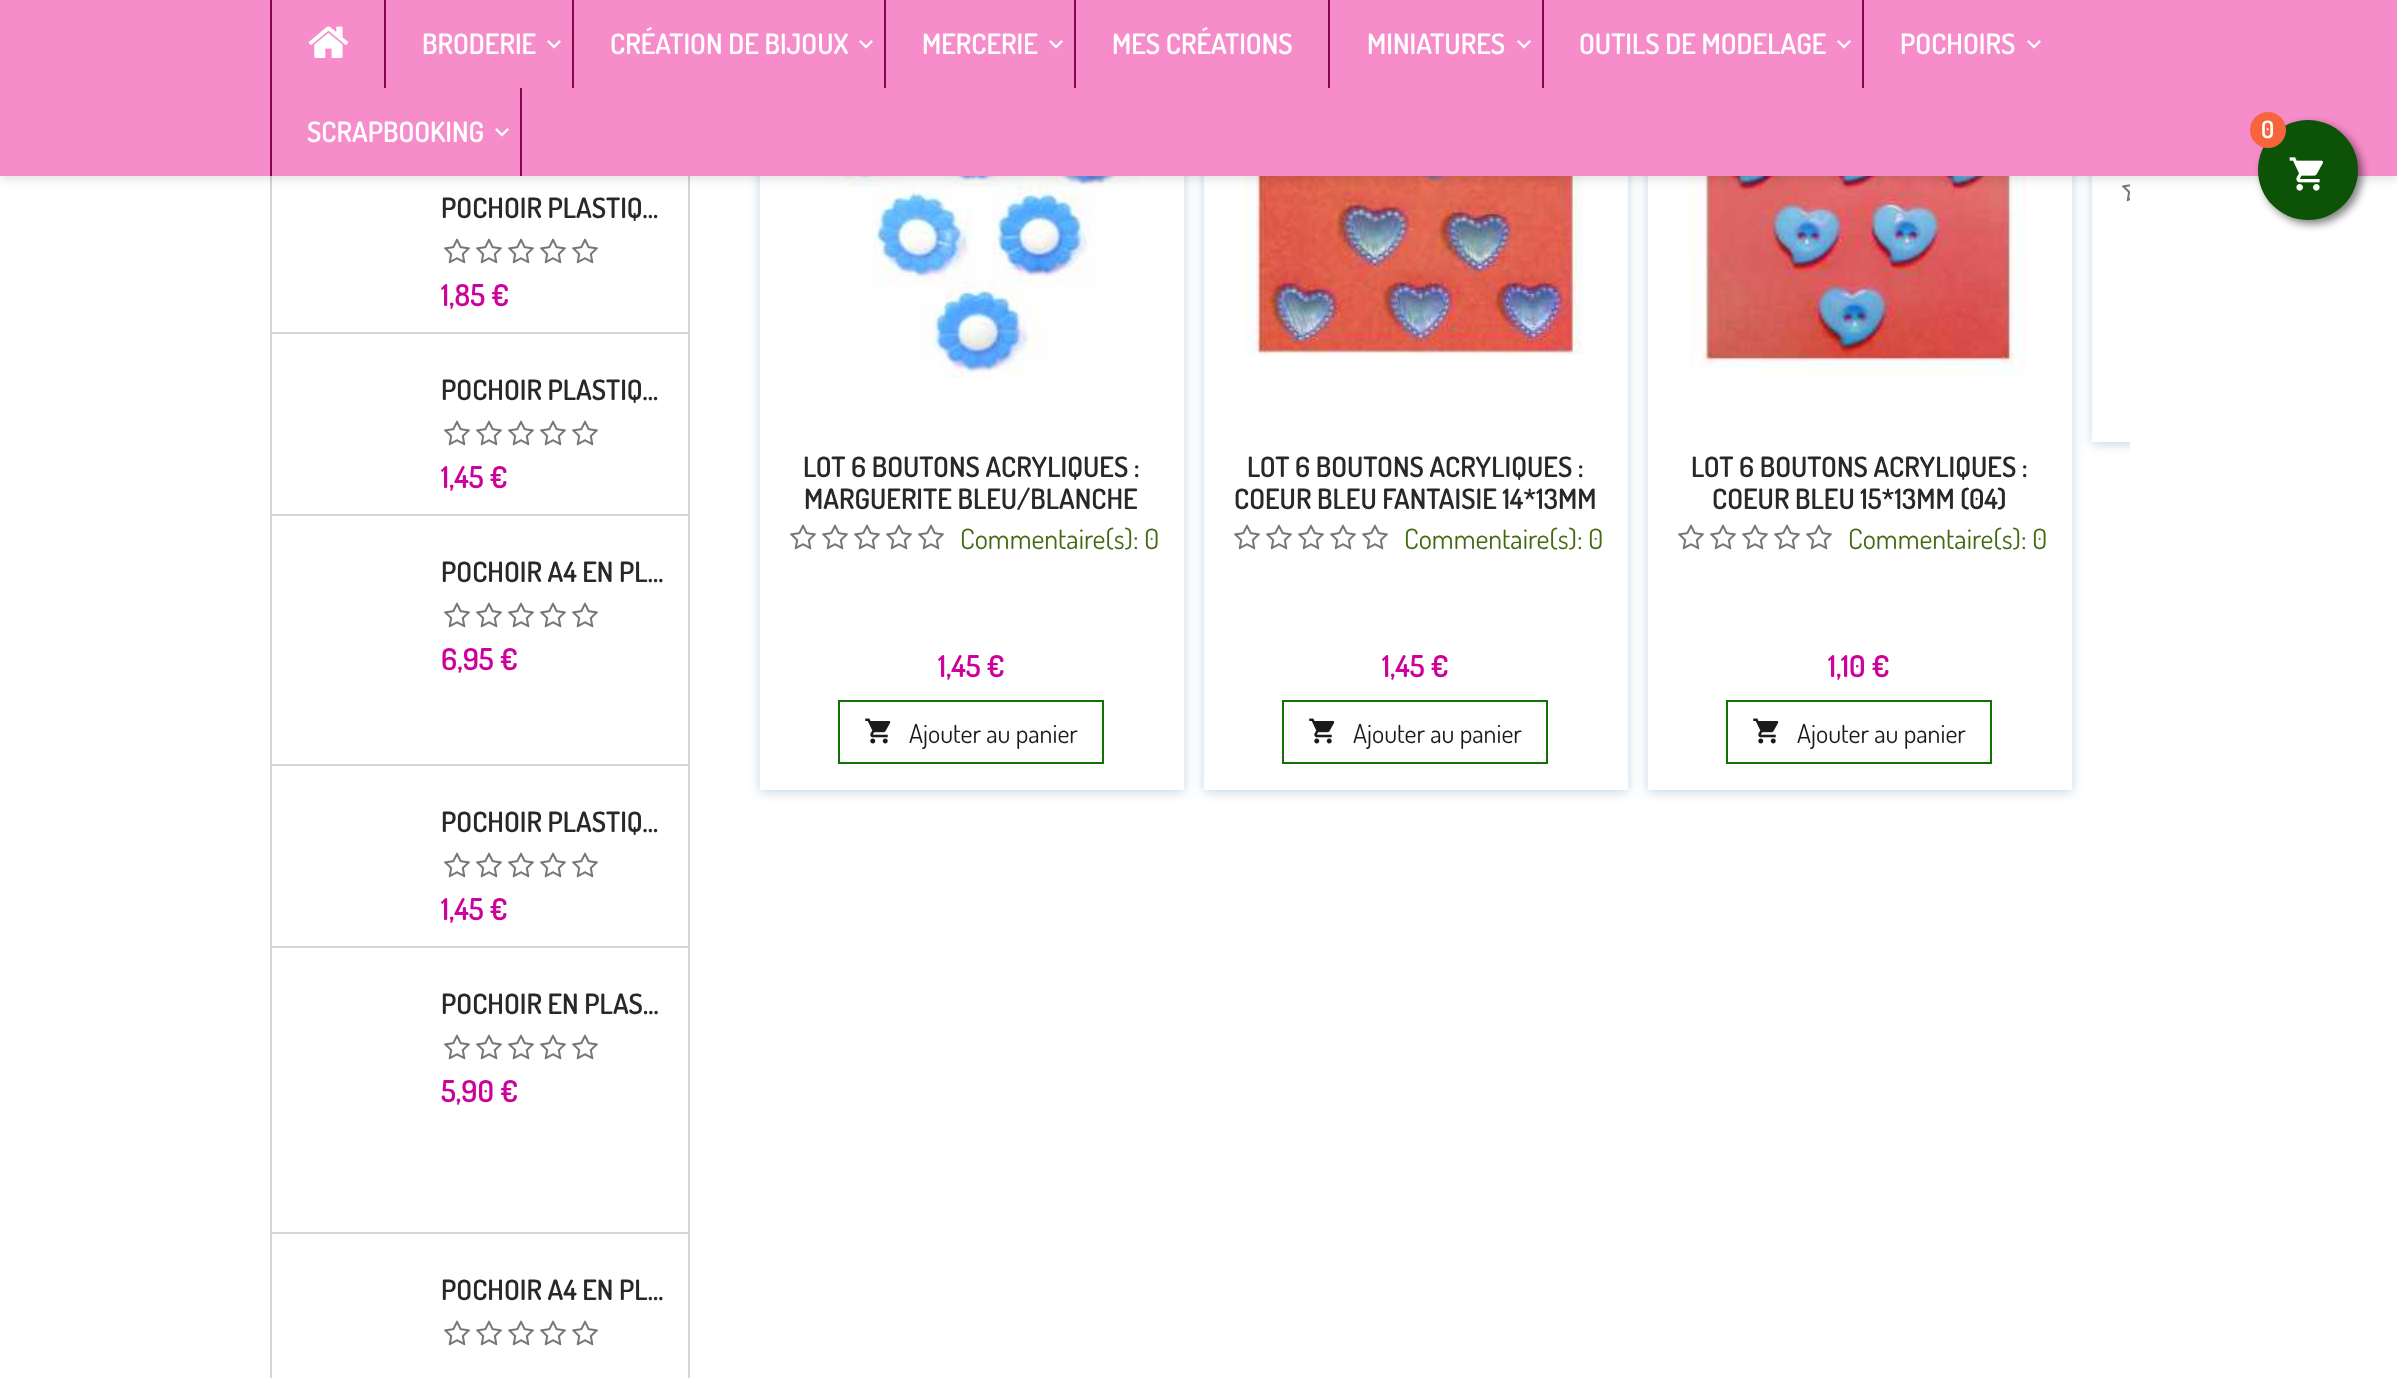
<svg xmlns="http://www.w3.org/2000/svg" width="2397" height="1378">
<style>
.a{font:600 28px Dosis;fill:#fff}
.b{font:600 24px Dosis;fill:#fff}
.c{font:600 28px Dosis;fill:#282828}
.d{font:600 30px Dosis;fill:#cc029a}
.e{font:28px Dosis;fill:#456913}
.f{font:26px Dosis;fill:#1b1b1b}
</style>
<defs>
<clipPath id="clip1"><path d="M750 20h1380v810H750z"/></clipPath>
<clipPath id="clip2"><path d="M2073 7h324v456h-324zm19 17h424v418h-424z" clip-rule="evenodd"/></clipPath>
<clipPath id="clip3"><path d="M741 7h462v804h-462zm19 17h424v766h-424z" clip-rule="evenodd"/></clipPath>
<clipPath id="clip4"><path d="M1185 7h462v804h-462zm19 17h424v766h-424z" clip-rule="evenodd"/></clipPath>
<clipPath id="clip5"><path d="M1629 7h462v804h-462zm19 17h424v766h-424z" clip-rule="evenodd"/></clipPath>
</defs>
<rect width="100%" height="100%" fill="#fff"/>
<path fill="#d6d4d4" d="M688 176h2v1202H688z"/>
<path fill="#d6d4d4" d="M270 332h420v2H270z"/>
<path fill="#d6d4d4" d="M270 176h2v158H270z"/>
<g clip-path="url(#clip1)">
<g clip-path="url(#clip2)">
<path fill="#0056913d" filter="blur(6px)" d="M2092 26h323v418H2092z"/>
</g>
</g>
<image href="5.png" x="2122" y="184" width="8" height="18"/>
<g clip-path="url(#clip3)">
<path fill="#0056913d" filter="blur(6px)" d="M760 26h424v766H760z"/>
</g>
<image href="6.png" x="801" y="176" width="338" height="203"/>
<g clip-path="url(#clip4)">
<path fill="#0056913d" filter="blur(6px)" d="M1204 26h424v766H1204z"/>
</g>
<image href="8.png" x="1245" y="176" width="338" height="179"/>
<g clip-path="url(#clip5)">
<path fill="#0056913d" filter="blur(6px)" d="M1648 26h424v766H1648z"/>
</g>
<image href="9.png" x="1690" y="176" width="336" height="202"/>
<path fill="#0000001a" filter="blur(4px)" d="M0 4h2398v176H0z"/>
<path fill="#f78ccb" d="M0 0h2397v176H0z"/>
<path fill="#8a034d" d="M270 0h2v176H270z"/>
<image href="1.png" x="308" y="26" width="41" height="32"/>
<path fill="#8a034d" d="M384 0h2v88H384z"/>
<image href="2.png" x="547" y="40" width="14" height="9"/>
<path fill="#8a034d" d="M572 0h2v88H572z"/>
<image href="2.png" x="859" y="40" width="14" height="9"/>
<path fill="#8a034d" d="M884 0h2v88H884z"/>
<image href="2.png" x="1049" y="40" width="14" height="9"/>
<path fill="#8a034d" d="M1074 0h2v88H1074z"/>
<path fill="#8a034d" d="M1328 0h2v88H1328z"/>
<image href="2.png" x="1517" y="40" width="14" height="9"/>
<path fill="#8a034d" d="M1542 0h2v88H1542z"/>
<image href="2.png" x="1837" y="40" width="14" height="9"/>
<path fill="#8a034d" d="M1862 0h2v88H1862z"/>
<image href="2.png" x="2027" y="40" width="14" height="9"/>
<path fill="#8a034d" d="M520 88h2v88H520z"/>
<image href="2.png" x="495" y="128" width="14" height="9"/>
<rect fill="#00000080" filter="blur(4px)" x="2262" y="124" width="100" height="100" rx="50"/>
<circle fill="#0c5207" cx="2308" cy="170" r="50"/>
<circle fill="#f8653d" cx="2268" cy="130" r="18"/>
<image href="3.png" x="2289" y="157" width="34" height="34"/>
<image href="4.png" x="444" y="238" width="26" height="26"/>
<image href="4.png" x="476" y="238" width="26" height="26"/>
<image href="4.png" x="508" y="238" width="26" height="26"/>
<image href="4.png" x="540" y="238" width="26" height="26"/>
<image href="4.png" x="572" y="238" width="26" height="26"/>
<path fill="#d6d4d4" d="M270 514h420v2H270z"/>
<path fill="#d6d4d4" d="M270 334h2v182H270z"/>
<image href="4.png" x="444" y="420" width="26" height="26"/>
<image href="4.png" x="476" y="420" width="26" height="26"/>
<image href="4.png" x="508" y="420" width="26" height="26"/>
<image href="4.png" x="540" y="420" width="26" height="26"/>
<image href="4.png" x="572" y="420" width="26" height="26"/>
<path fill="#d6d4d4" d="M270 764h420v2H270z"/>
<path fill="#d6d4d4" d="M270 516h2v250H270z"/>
<image href="4.png" x="444" y="602" width="26" height="26"/>
<image href="4.png" x="476" y="602" width="26" height="26"/>
<image href="4.png" x="508" y="602" width="26" height="26"/>
<image href="4.png" x="540" y="602" width="26" height="26"/>
<image href="4.png" x="572" y="602" width="26" height="26"/>
<path fill="#d6d4d4" d="M270 946h420v2H270z"/>
<path fill="#d6d4d4" d="M270 766h2v182H270z"/>
<image href="4.png" x="444" y="852" width="26" height="26"/>
<image href="4.png" x="476" y="852" width="26" height="26"/>
<image href="4.png" x="508" y="852" width="26" height="26"/>
<image href="4.png" x="540" y="852" width="26" height="26"/>
<image href="4.png" x="572" y="852" width="26" height="26"/>
<path fill="#d6d4d4" d="M270 1232h420v2H270z"/>
<path fill="#d6d4d4" d="M270 948h2v430H270z"/>
<image href="4.png" x="444" y="1034" width="26" height="26"/>
<image href="4.png" x="476" y="1034" width="26" height="26"/>
<image href="4.png" x="508" y="1034" width="26" height="26"/>
<image href="4.png" x="540" y="1034" width="26" height="26"/>
<image href="4.png" x="572" y="1034" width="26" height="26"/>
<image href="4.png" x="444" y="1320" width="26" height="26"/>
<image href="4.png" x="476" y="1320" width="26" height="26"/>
<image href="4.png" x="508" y="1320" width="26" height="26"/>
<image href="4.png" x="540" y="1320" width="26" height="26"/>
<image href="4.png" x="572" y="1320" width="26" height="26"/>
<image href="4.png" x="790" y="524" width="26" height="26"/>
<image href="4.png" x="822" y="524" width="26" height="26"/>
<image href="4.png" x="854" y="524" width="26" height="26"/>
<image href="4.png" x="886" y="524" width="26" height="26"/>
<image href="4.png" x="918" y="524" width="26" height="26"/>
<path fill="none" stroke="#117304" stroke-width="2" d="M839 701h264v62H839z"/>
<image href="7.png" x="865" y="718" width="26" height="26"/>
<image href="4.png" x="1234" y="524" width="26" height="26"/>
<image href="4.png" x="1266" y="524" width="26" height="26"/>
<image href="4.png" x="1298" y="524" width="26" height="26"/>
<image href="4.png" x="1330" y="524" width="26" height="26"/>
<image href="4.png" x="1362" y="524" width="26" height="26"/>
<path fill="none" stroke="#117304" stroke-width="2" d="M1283 701h264v62H1283z"/>
<image href="7.png" x="1309" y="718" width="26" height="26"/>
<image href="4.png" x="1678" y="524" width="26" height="26"/>
<image href="4.png" x="1710" y="524" width="26" height="26"/>
<image href="4.png" x="1742" y="524" width="26" height="26"/>
<image href="4.png" x="1774" y="524" width="26" height="26"/>
<image href="4.png" x="1806" y="524" width="26" height="26"/>
<path fill="none" stroke="#117304" stroke-width="2" d="M1727 701h264v62H1727z"/>
<image href="7.png" x="1753" y="718" width="26" height="26"/>
<text class="a" x="422" y="54">BRODERIE</text>
<text class="a" x="610" y="54">CRÉATION DE BIJOUX</text>
<text class="a" x="922" y="54">MERCERIE</text>
<text class="a" x="1112" y="54">MES CRÉATIONS</text>
<text class="a" x="1367" y="54">MINIATURES</text>
<text class="a" x="1579" y="54">OUTILS DE MODELAGE</text>
<text class="a" x="1900" y="54">POCHOIRS</text>
<text class="a" x="307" y="142">SCRAPBOOKING</text>
<text class="b" x="2261" y="138">0</text>
<text class="c" x="441" y="218">POCHOIR PLASTIQ…</text>
<text class="d" x="441" y="306">1,85 €</text>
<text class="c" x="441" y="400">POCHOIR PLASTIQ…</text>
<text class="d" x="441" y="488">1,45 €</text>
<text class="c" x="441" y="582">POCHOIR A4 EN PL…</text>
<text class="d" x="441" y="670">6,95 €</text>
<text class="c" x="441" y="832">POCHOIR PLASTIQ…</text>
<text class="d" x="441" y="920">1,45 €</text>
<text class="c" x="441" y="1014">POCHOIR EN PLAS…</text>
<text class="d" x="441" y="1102">5,90 €</text>
<text class="c" x="441" y="1300">POCHOIR A4 EN PL…</text>
<text class="c" x="803" y="477">LOT 6 BOUTONS ACRYLIQUES :</text>
<text class="c" x="804" y="509">MARGUERITE BLEU/BLANCHE</text>
<text class="e" x="960" y="549">Commentaire(s): 0</text>
<text class="d" x="938" y="677">1,45 €</text>
<text class="f" x="909" y="743">Ajouter au panier</text>
<text class="c" x="1247" y="477">LOT 6 BOUTONS ACRYLIQUES :</text>
<text class="c" x="1234" y="509">COEUR BLEU FANTAISIE 14*13MM</text>
<text class="e" x="1404" y="549">Commentaire(s): 0</text>
<text class="d" x="1382" y="677">1,45 €</text>
<text class="f" x="1353" y="743">Ajouter au panier</text>
<text class="c" x="1691" y="477">LOT 6 BOUTONS ACRYLIQUES :</text>
<text class="c" x="1712" y="509">COEUR BLEU 15*13MM (04)</text>
<text class="e" x="1848" y="549">Commentaire(s): 0</text>
<text class="d" x="1828" y="677">1,10 €</text>
<text class="f" x="1797" y="743">Ajouter au panier</text>
</svg>
